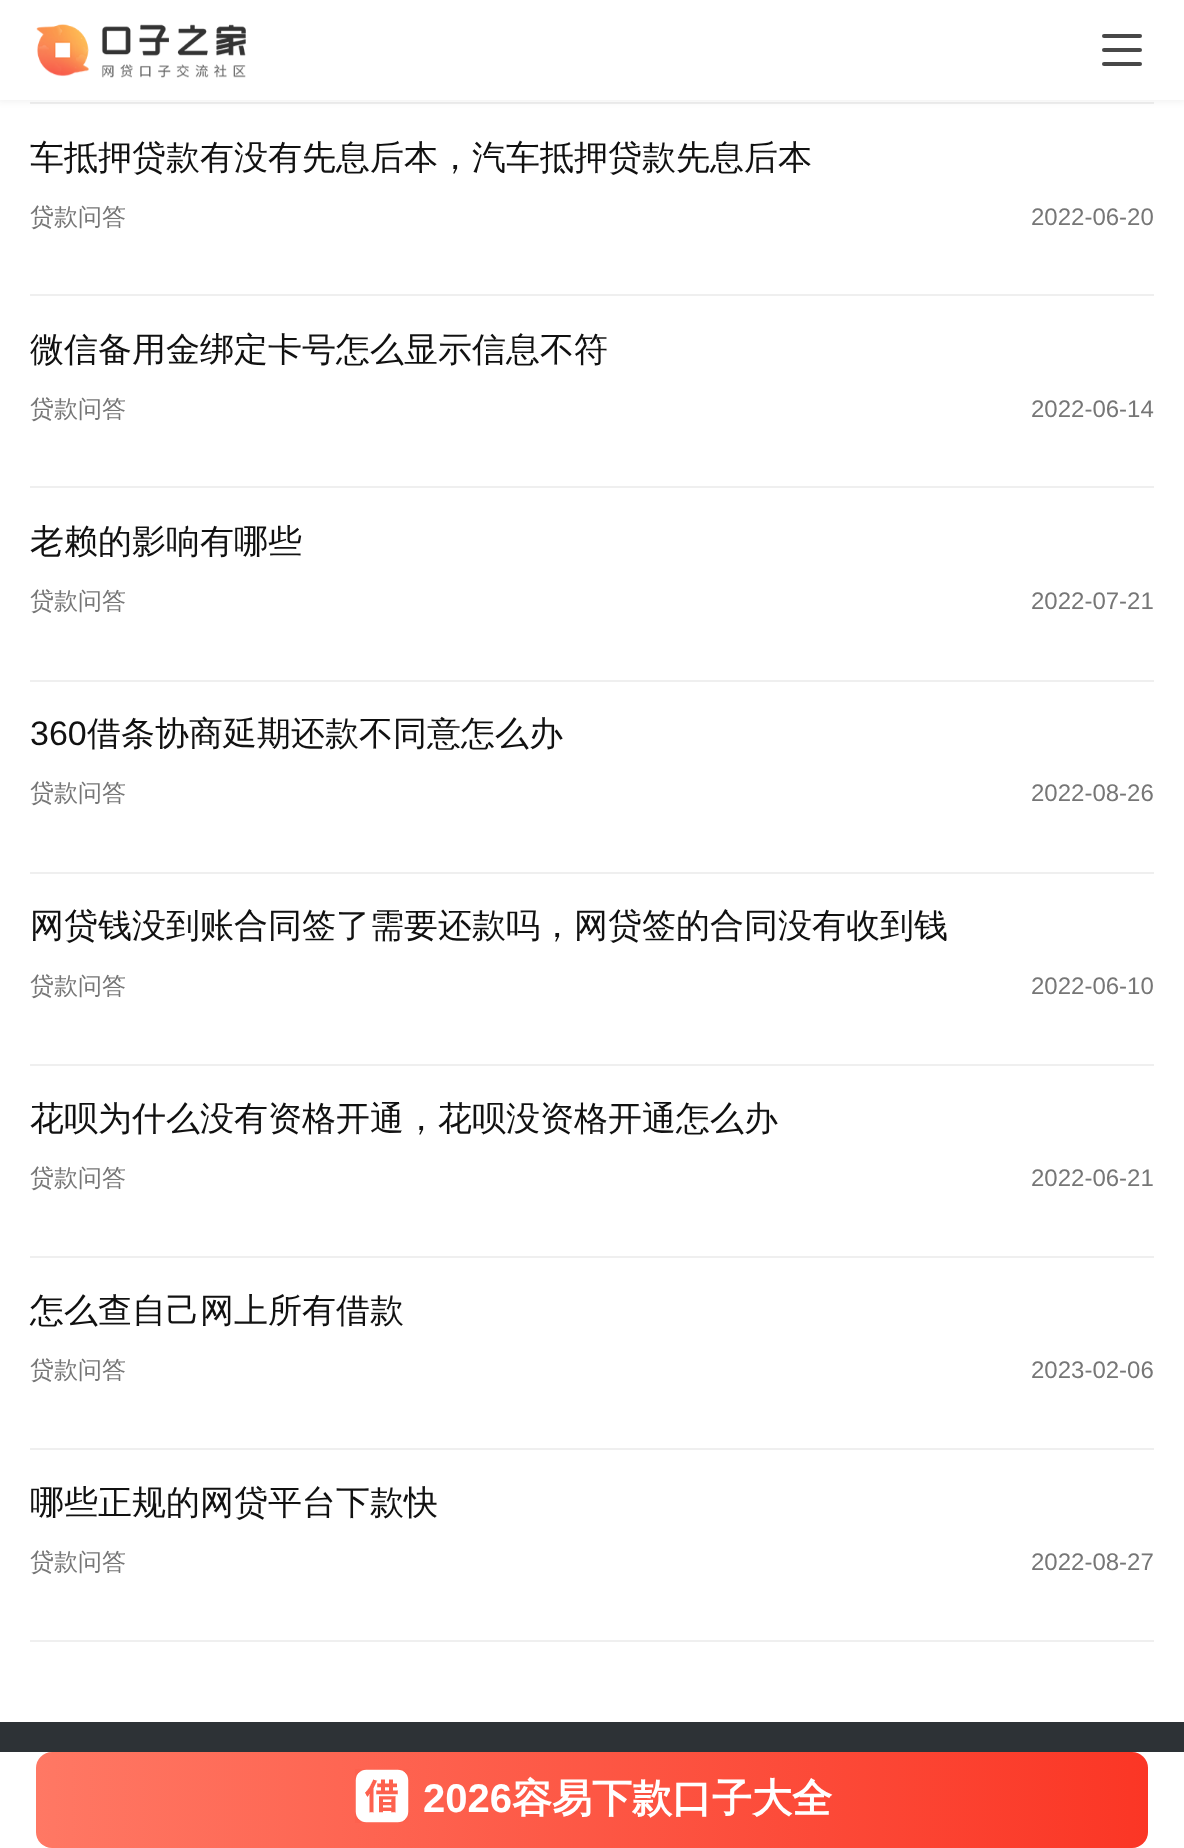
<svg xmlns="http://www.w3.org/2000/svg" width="1184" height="1848">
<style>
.a{font:500 34px WenQuanYi Zen Hei;fill:#111}
.b{font:500 24px WenQuanYi Zen Hei;fill:#767676}
.c{font:24px Liberation Sans;fill:#767676}
.d{font:34px Liberation Sans;fill:#111}
.e{font:bold 40px Liberation Sans;fill:#fff}
.f{font:bold 40px WenQuanYi Zen Hei;fill:#fff}
</style>
<defs>
<linearGradient id="g1" gradientUnits="userSpaceOnUse" x1="36" y1="1800" x2="1148" y2="1800"><stop offset="0" stop-color="#ff7864"/><stop offset="1" stop-color="#fb3625"/></linearGradient>
</defs>
<rect width="100%" height="100%" fill="#fff"/>
<path fill="#efefef" d="M30 102h1124v2H30z"/>
<path fill="#1a1a1a0f" filter="blur(3px)" d="M-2 -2h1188v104H-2z"/>
<path fill="#fff" d="M0 0h1184v100H0z"/>
<image href="1.png" x="36" y="24" width="210" height="54"/>
<rect fill="#484848" x="1102" y="34" width="40" height="4" rx="2"/>
<rect fill="#484848" x="1102" y="48" width="40" height="4" rx="2"/>
<rect fill="#484848" x="1102" y="62" width="40" height="4" rx="2"/>
<path fill="#efefef" d="M30 294h1124v2H30z"/>
<path fill="#efefef" d="M30 486h1124v2H30z"/>
<path fill="#efefef" d="M30 680h1124v2H30z"/>
<path fill="#efefef" d="M30 872h1124v2H30z"/>
<path fill="#efefef" d="M30 1064h1124v2H30z"/>
<path fill="#efefef" d="M30 1256h1124v2H30z"/>
<path fill="#efefef" d="M30 1448h1124v2H30z"/>
<path fill="#efefef" d="M30 1640h1124v2H30z"/>
<path fill="#2d3236" d="M0 1722h1184v30H0z"/>
<rect fill="url(#g1)" x="36" y="1752" width="1112" height="96" rx="16"/>
<image href="2.png" x="355" y="1769" width="54" height="54"/>
<text class="a" x="30" y="169">车抵押贷款有没有先息后本，汽车抵押贷款先息后本</text>
<text class="b" x="30" y="225">贷款问答</text>
<text class="c" x="1031" y="225">2022-06-20</text>
<text class="a" x="30" y="361">微信备用金绑定卡号怎么显示信息不符</text>
<text class="b" x="30" y="417">贷款问答</text>
<text class="c" x="1031" y="417">2022-06-14</text>
<text class="a" x="30" y="553">老赖的影响有哪些</text>
<text class="b" x="30" y="609">贷款问答</text>
<text class="c" x="1031" y="609">2022-07-21</text>
<text class="d" x="30" y="745">360</text>
<text class="a" x="87" y="745">借条协商延期还款不同意怎么办</text>
<text class="b" x="30" y="801">贷款问答</text>
<text class="c" x="1031" y="801">2022-08-26</text>
<text class="a" x="30" y="937">网贷钱没到账合同签了需要还款吗，网贷签的合同没有收到钱</text>
<text class="b" x="30" y="994">贷款问答</text>
<text class="c" x="1031" y="994">2022-06-10</text>
<text class="a" x="30" y="1130">花呗为什么没有资格开通，花呗没资格开通怎么办</text>
<text class="b" x="30" y="1186">贷款问答</text>
<text class="c" x="1031" y="1186">2022-06-21</text>
<text class="a" x="30" y="1322">怎么查自己网上所有借款</text>
<text class="b" x="30" y="1378">贷款问答</text>
<text class="c" x="1031" y="1378">2023-02-06</text>
<text class="a" x="30" y="1514">哪些正规的网贷平台下款快</text>
<text class="b" x="30" y="1570">贷款问答</text>
<text class="c" x="1031" y="1570">2022-08-27</text>
<text class="e" x="423" y="1812">2026</text>
<text class="f" x="512" y="1812">容易下款口子大全</text>
</svg>
